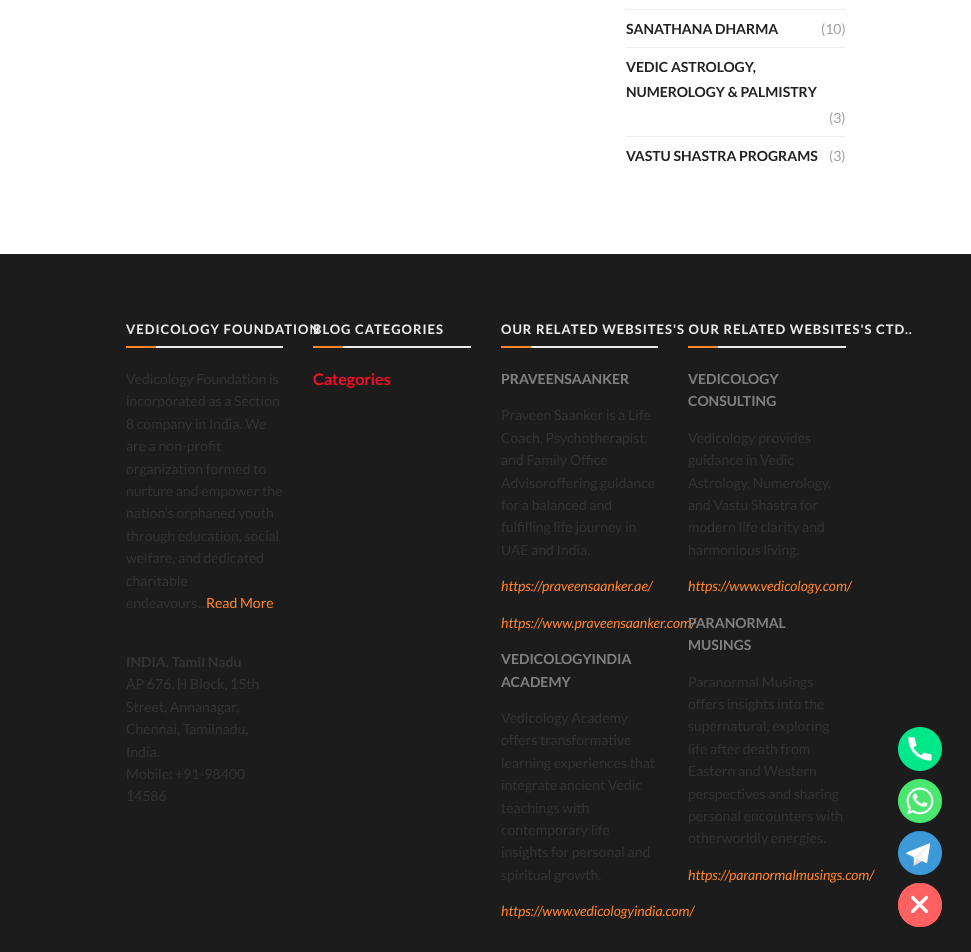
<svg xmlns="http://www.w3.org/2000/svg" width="971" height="952">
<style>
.a{font:bold 14px Lato;fill:#212121}
.b{font:14px Lato;fill:#a0a0a0}
.c{font:bold 13px Lato;letter-spacing:1px;fill:#ebebeb}
.d{font:14px Lato;fill:#333}
.e{font:14px Lato;fill:#ff8528}
.f{font:bold 14px Lato;fill:#333}
.g{font:bold 16px Lato;fill:#f70d28}
.h{font:bold 14px Lato;fill:#808080}
.i{font:italic 14px Lato;fill:#ff8528}
</style>
<rect width="100%" height="100%" fill="#fff"/>
<path fill="#eee" d="M626 9h220v1H626z"/>
<path fill="#eee" d="M626 47h220v1H626z"/>
<path fill="#eee" d="M626 136h220v1H626z"/>
<path fill="#1c1c1c" d="M0 254h971v698H0z"/>
<path fill="#eee" d="M156 346h127v2H156z"/>
<path fill="#ff8528" d="M126 346h30v2H126z"/>
<path fill="#eee" d="M343 346h128v2H343z"/>
<path fill="#ff8528" d="M313 346h30v2H313z"/>
<path fill="#eee" d="M531 346h127v2H531z"/>
<path fill="#ff8528" d="M501 346h30v2H501z"/>
<path fill="#eee" d="M718 346h128v2H718z"/>
<path fill="#ff8528" d="M688 346h30v2H688z"/>
<image href="1.png" x="898" y="727" width="44" height="44"/>
<image href="2.png" x="898" y="779" width="44" height="44"/>
<image href="3.png" x="898" y="831" width="44" height="44"/>
<path fill="#ff6060" d="M920 927c-29 0-29-44 0-44c29 0 29 44 0 44z"/>
<image href="4.png" x="898" y="883" width="44" height="44"/>
<text class="a" x="626" y="34">SANATHANA DHARMA</text>
<text class="b" x="821" y="34">(10)</text>
<text class="a" x="626" y="72">VEDIC ASTROLOGY,</text>
<text class="a" x="626" y="97">NUMEROLOGY &amp; PALMISTRY</text>
<text class="b" x="829" y="123">(3)</text>
<text class="a" x="626" y="161">VASTU SHASTRA PROGRAMS</text>
<text class="b" x="829" y="161">(3)</text>
<text class="c" x="126" y="334">VEDICOLOGY FOUNDATION</text>
<text class="d" x="126" y="384">Vedicology Foundation is</text>
<text class="d" x="126" y="406">incorporated as a Section</text>
<text class="d" x="126" y="429">8 company in India. We</text>
<text class="d" x="126" y="451">are a non-profit</text>
<text class="d" x="126" y="474">organization formed to</text>
<text class="d" x="126" y="496">nurture and empower the</text>
<text class="d" x="126" y="518">nation’s orphaned youth</text>
<text class="d" x="126" y="541">through education, social</text>
<text class="d" x="126" y="563">welfare, and dedicated</text>
<text class="d" x="126" y="586">charitable</text>
<text class="d" x="126" y="608">endeavours...</text>
<text class="e" x="206" y="608">Read More</text>
<text class="f" x="126" y="667">INDIA, Tamil Nadu</text>
<text class="d" x="126" y="689">AP 676. H Block, 15th</text>
<text class="d" x="126" y="712">Street, Annanagar,</text>
<text class="d" x="126" y="734">Chennai, Tamilnadu,</text>
<text class="d" x="126" y="757">India.</text>
<text class="d" x="126" y="779">Mobile: +91-98400</text>
<text class="d" x="126" y="801">14586</text>
<text class="c" x="313" y="334">BLOG CATEGORIES</text>
<text class="g" x="313" y="385">Categories</text>
<text class="c" x="501" y="334">OUR RELATED WEBSITES'S OUR RELATED WEBSITES'S CTD..</text>
<text class="h" x="501" y="384">PRAVEENSAANKER</text>
<text class="d" x="501" y="420">Praveen Saanker is a Life</text>
<text class="d" x="501" y="443">Coach, Psychotherapist,</text>
<text class="d" x="501" y="465">and Family Office</text>
<text class="d" x="501" y="488">Advisoroffering guidance</text>
<text class="d" x="501" y="510">for a balanced and</text>
<text class="d" x="501" y="532">fulfilling life journey in</text>
<text class="d" x="501" y="555">UAE and India.</text>
<text class="i" x="501" y="591">https://praveensaanker.ae/</text>
<text class="i" x="501" y="628">https://www.praveensaanker.com/</text>
<text class="h" x="501" y="664">VEDICOLOGYINDIA</text>
<text class="h" x="501" y="687">ACADEMY</text>
<text class="d" x="501" y="723">Vedicology Academy</text>
<text class="d" x="501" y="745">offers transformative</text>
<text class="d" x="501" y="768">learning experiences that</text>
<text class="d" x="501" y="790">integrate ancient Vedic</text>
<text class="d" x="501" y="813">teachings with</text>
<text class="d" x="501" y="835">contemporary life</text>
<text class="d" x="501" y="857">insights for personal and</text>
<text class="d" x="501" y="880">spiritual growth.</text>
<text class="i" x="501" y="916">https://www.vedicologyindia.com/</text>
<text class="h" x="688" y="384">VEDICOLOGY</text>
<text class="h" x="688" y="406">CONSULTING</text>
<text class="d" x="688" y="443">Vedicology provides</text>
<text class="d" x="688" y="465">guidance in Vedic</text>
<text class="d" x="688" y="488">Astrology, Numerology,</text>
<text class="d" x="688" y="510">and Vastu Shastra for</text>
<text class="d" x="688" y="532">modern life clarity and</text>
<text class="d" x="688" y="555">harmonious living.</text>
<text class="i" x="688" y="591">https://www.vedicology.com/</text>
<text class="h" x="688" y="628">PARANORMAL</text>
<text class="h" x="688" y="650">MUSINGS</text>
<text class="d" x="688" y="687">Paranormal Musings</text>
<text class="d" x="688" y="709">offers insights into the</text>
<text class="d" x="688" y="731">supernatural, exploring</text>
<text class="d" x="688" y="754">life after death from</text>
<text class="d" x="688" y="776">Eastern and Western</text>
<text class="d" x="688" y="799">perspectives and sharing</text>
<text class="d" x="688" y="821">personal encounters with</text>
<text class="d" x="688" y="843">otherworldly energies.</text>
<text class="i" x="688" y="880">https://paranormalmusings.com/</text>
</svg>
